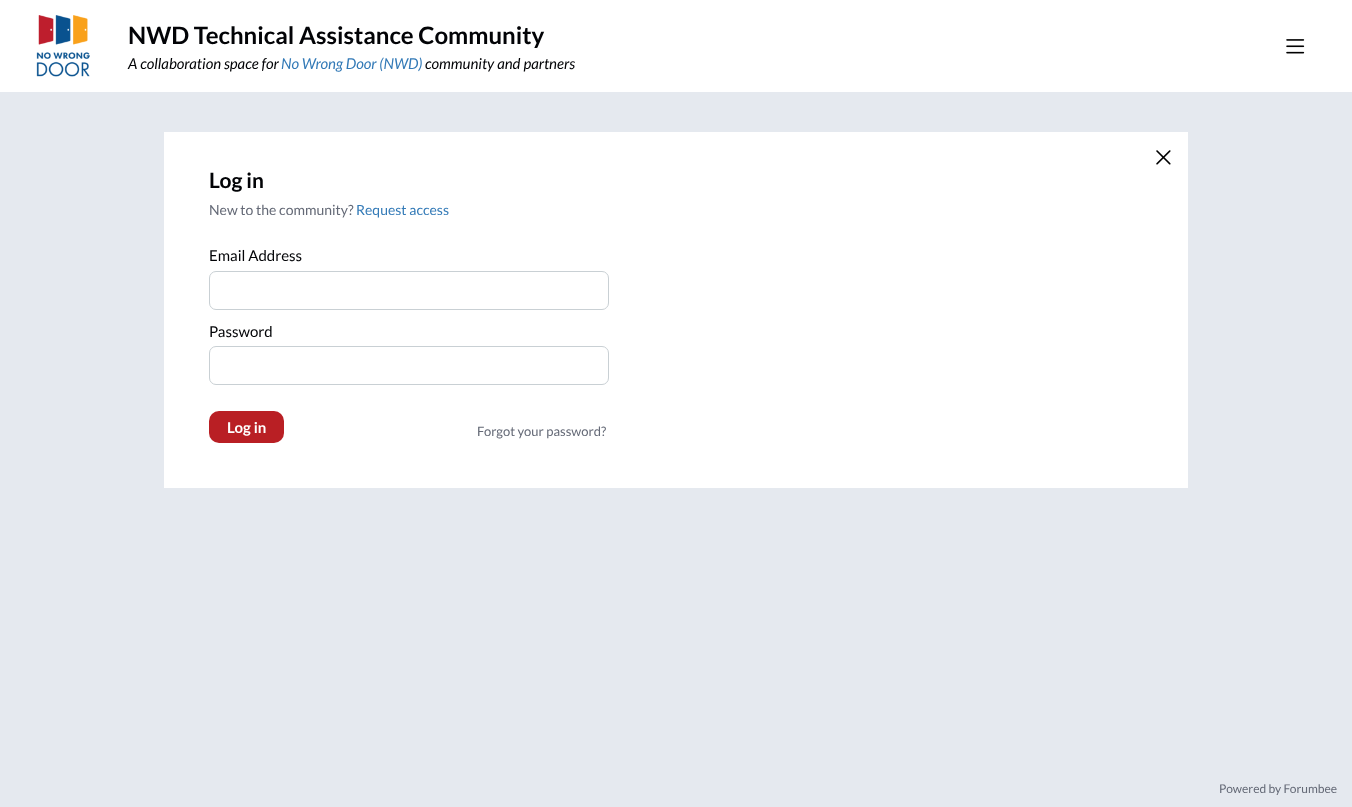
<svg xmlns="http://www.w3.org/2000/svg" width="1352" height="807">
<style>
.a{font:bold 24px Lato;fill:#020306}
.b{font:italic 15px Lato;fill:#020306}
.c{font:italic 15px Lato;fill:#337ab7}
.d{font:bold 21px Lato;fill:#020306}
.e{font:14px Lato;fill:#646976}
.f{font:14px Lato;fill:#337ab7}
.g{font:15px Lato;fill:#020306}
.h{font:bold 15px Lato;fill:#fff}
.i{font:13px Lato;fill:#646976}
.j{font:12px Lato;fill:#646976}
</style>
<rect width="100%" height="100%" fill="#e5e9ef"/>
<path fill="#fff" d="M0 0h1352v92H0z"/>
<image href="1.png" x="36" y="15" width="54" height="62"/>
<image href="2.png" x="1286" y="39" width="19" height="15"/>
<path fill="#fff" d="M164 132h1024v356H164z"/>
<image href="3.png" x="1156" y="150" width="15" height="15"/>
<rect fill="none" stroke="#c9d0d4" x="209.5" y="271.5" width="399" height="38" rx="6.5"/>
<rect fill="none" stroke="#c9d0d4" x="209.5" y="346.5" width="399" height="38" rx="6.5"/>
<rect fill="#b91f24" x="209" y="411" width="75" height="32" rx="10"/>
<text class="a" x="128" y="44">NWD Technical Assistance Community</text>
<text class="b" x="128" y="69">A collaboration space for</text>
<text class="c" x="281" y="69">No Wrong Door (NWD)</text>
<text class="b" x="425" y="69">community and partners</text>
<text class="d" x="209" y="188">Log in</text>
<text class="e" x="209" y="215">New to the community?</text>
<text class="f" x="356" y="215">Request access</text>
<text class="g" x="209" y="261">Email Address</text>
<text class="g" x="209" y="337">Password</text>
<text class="h" x="227" y="433">Log in</text>
<text class="i" x="477" y="436">Forgot your password?</text>
<text class="j" x="1219" y="793">Powered by Forumbee</text>
</svg>
